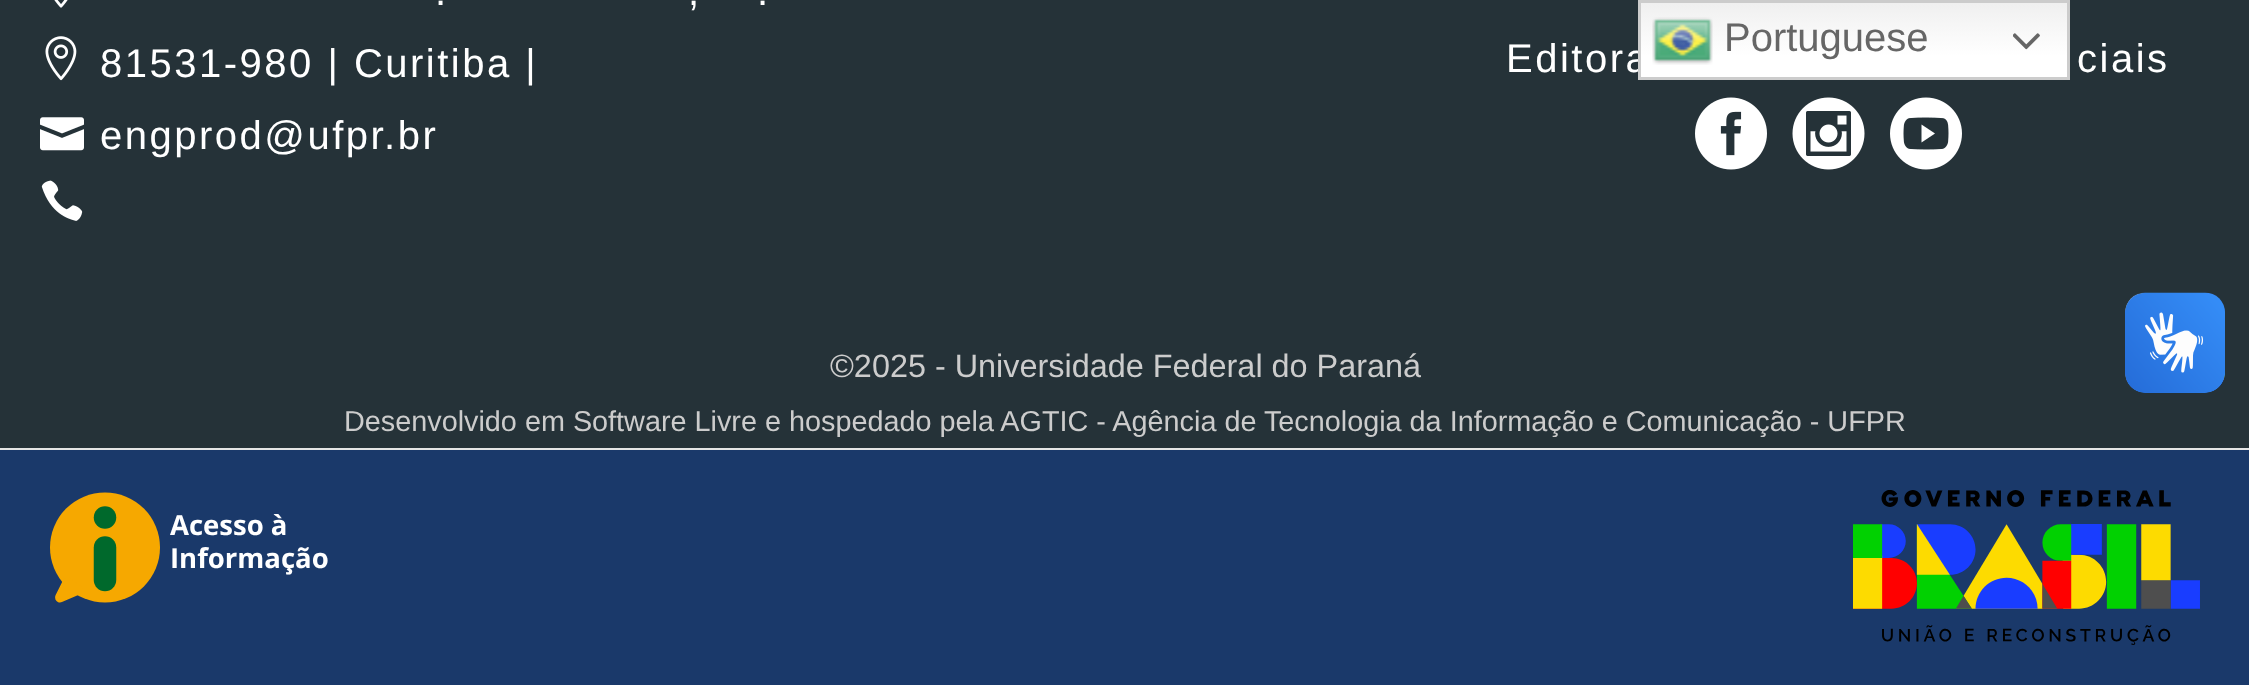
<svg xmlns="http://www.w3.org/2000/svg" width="2249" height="685">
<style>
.a{font:40px Liberation Sans;letter-spacing:2.5px;fill:#fff}
.b{font:32.4px Liberation Sans;fill:#ccc}
.c{font:28.8px Liberation Sans;fill:#ccc}
.d{font:40px Liberation Sans;fill:#666}
</style>
<defs>
<linearGradient id="g1" gradientUnits="userSpaceOnUse" x1="1854" y1="0" x2="1854" y2="80"><stop offset="0" stop-color="#efefef"/><stop offset="0.7" stop-color="#fff"/></linearGradient>
</defs>
<rect width="100%" height="100%" fill="#e5e5e5"/>
<path fill="#253238" d="M0 0h2249v448H0z"/>
<image href="1.png" x="54" y="0" width="14" height="8"/>
<image href="2.png" x="45" y="36" width="32" height="45"/>
<image href="3.png" x="40" y="117" width="44" height="34"/>
<image href="4.png" x="41" y="180" width="42" height="41"/>
<image href="5.png" x="1695" y="97" width="72" height="73"/>
<image href="6.png" x="1792" y="97" width="73" height="73"/>
<image href="7.png" x="1890" y="97" width="72" height="73"/>
<image href="10.png" x="2125" y="292" width="100" height="101"/>
<image href="11.png" x="2125" y="293" width="100" height="100"/>
<path fill="#1a396a" d="M0 450h2249v235H0z"/>
<image href="12.png" x="50" y="492" width="278" height="111"/>
<image href="13.png" x="1853" y="490" width="347" height="155"/>
<text class="a" x="435" y="5">.</text>
<text class="a" x="688" y="5">,</text>
<text class="a" x="757" y="5">.</text>
<text class="a" x="100" y="77">81531-980 | Curitiba |</text>
<text class="a" x="100" y="149">engprod@ufpr.br</text>
<text class="a" x="1506" y="72">Editora</text>
<text class="a" x="2077" y="72">ciais</text>
<text class="b" x="830" y="377">©2025 - Universidade Federal do Paraná</text>
<text class="c" x="344" y="431">Desenvolvido em Software Livre e hospedado pela AGTIC - Agência de Tecnologia da Informação e Comunicação - UFPR</text>
<path fill="url(#g1)" d="M1641 3h426v74H1641z"/>
<path fill="none" stroke="#ccc" stroke-width="3" d="M1639.5 1.5h429v77H1639.5z"/>
<image href="8.png" x="1652" y="17" width="61" height="48"/>
<text class="d" x="1724" y="51">Portuguese</text>
<image href="9.png" x="2013" y="33" width="27" height="17"/>
</svg>
